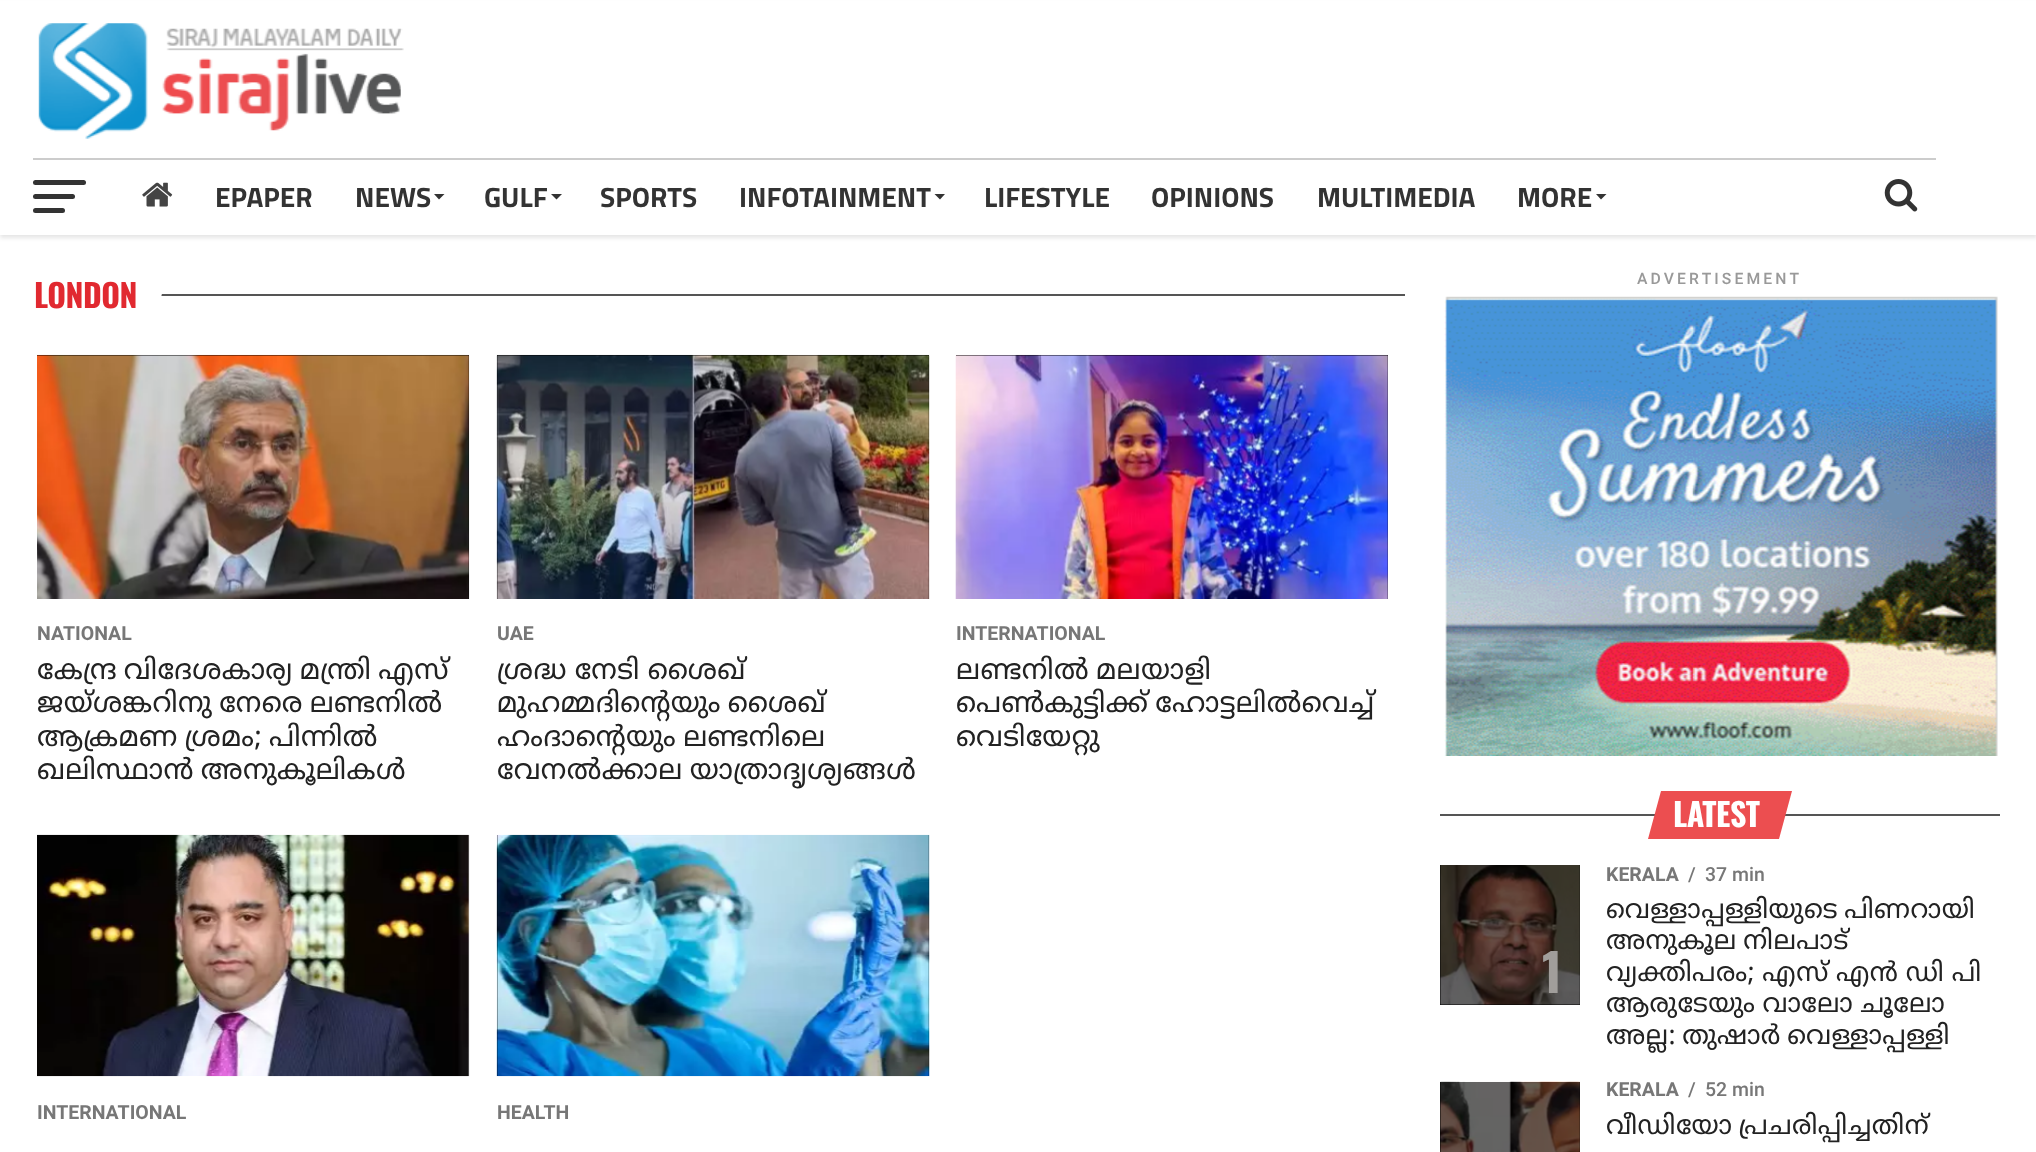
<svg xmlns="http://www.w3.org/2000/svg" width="2036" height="1152">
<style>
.a{font:bold 28px Titillium Web;fill:#333}
.b{font:bold 32px Oswald;letter-spacing:-0.5px;fill:#e12930}
.c{font:bold 19.5px Roboto;fill:#777}
.d{font:28px Noto Sans Malayalam;letter-spacing:0.35px;fill:#222}
.e{font:500 15.75px Roboto;letter-spacing:3.1px;fill:#999}
.f{font:bold 32px Oswald;letter-spacing:-0.5px;fill:#fff}
.g{font:bold 52px Oswald;fill:#a19e9b}
.h{font:500 19.5px Roboto;fill:#777}
.i{font:26.25px Noto Sans Malayalam;letter-spacing:0.35px;fill:#222}
</style>
<defs>
<clipPath id="clip1"><path d="M497 355h432v454H497z"/></clipPath>
</defs>
<rect width="100%" height="100%" fill="#fff"/>
<path fill="#0000001a" filter="blur(2px)" d="M0 4h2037v234H0z"/>
<path fill="#fff" d="M0 1h2036v234H0z"/>
<path fill="#ccc" d="M33 158h1903v2H33z"/>
<image href="1.png" x="38" y="23" width="366" height="116"/>
<rect fill="#333" x="33" y="180" width="53" height="5" rx="2.5"/>
<rect fill="#333" x="33" y="194" width="42" height="5" rx="2.5"/>
<rect fill="#333" x="33" y="208" width="32" height="5" rx="2.5"/>
<image href="2.png" x="142" y="182" width="31" height="25"/>
<path fill="#333" d="M434 194h10.5l-5.5 5.5z"/>
<path fill="#333" d="M551 194h11l-5.5 5.5z"/>
<path fill="#333" d="M934.5 194h10.5l-5 5.5z"/>
<path fill="#333" d="M1596 194h10.5l-5.5 5.5z"/>
<image href="3.png" x="1884" y="179" width="34" height="33"/>
<path fill="#555" d="M37 294h1368v2H37z"/>
<path fill="#fff" d="M43 271h125l-13 49h-124z"/>
<path fill="#000" d="M37 355h432v244H37z"/>
<image href="4.png" x="37" y="354" width="433" height="245"/>
<path fill="#000" d="M497 355h432v244H497z"/>
<image href="5.png" x="496" y="354" width="434" height="245"/>
<path fill="#000" d="M956 355h432v244H956z"/>
<image href="6.png" x="955" y="354" width="433" height="245"/>
<image href="7.png" x="37" y="834" width="433" height="243"/>
<path fill="#000" d="M497 835h432v241H497z"/>
<image href="8.png" x="496" y="834" width="434" height="243"/>
<image href="9.png" x="1444" y="296" width="554" height="460"/>
<path fill="#555" d="M1440 814h560v2H1440z"/>
<path fill="#ec4e50" d="M1661 791h131l-13 48h-131z"/>
<path fill="#000" d="M1440 865h140v140H1440z"/>
<image href="10.png" x="1440" y="865" width="140" height="140"/>
<path fill="#000" d="M1440 1082h140v70H1440z"/>
<image href="11.png" x="1440" y="1081" width="140" height="71"/>
<text class="a" x="215" y="207">EPAPER</text>
<text class="a" x="355" y="207">NEWS</text>
<text class="a" x="484" y="207">GULF</text>
<text class="a" x="600" y="207">SPORTS</text>
<text class="a" x="739" y="207">INFOTAINMENT</text>
<text class="a" x="984" y="207">LIFESTYLE</text>
<text class="a" x="1151" y="207">OPINIONS</text>
<text class="a" x="1317" y="207">MULTIMEDIA</text>
<text class="a" x="1517" y="207">MORE</text>
<text class="b" x="34" y="308">LONDON</text>
<text class="c" x="37" y="640">NATIONAL</text>
<text class="d" x="37" y="679" word-spacing="-2">കേന്ദ്ര വിദേശകാര്യ മന്ത്രി എസ്</text>
<text class="d" x="37" y="712" word-spacing="-2">ജയ്ശങ്കറിനു നേരെ ലണ്ടനില്‍</text>
<text class="d" x="37" y="746" word-spacing="-2">ആക്രമണ ശ്രമം; പിന്നില്‍</text>
<text class="d" x="37" y="779" word-spacing="-2">ഖലിസ്ഥാന്‍ അനുകൂലികള്‍</text>
<text class="c" x="497" y="640">UAE</text>
<text class="d" x="497" y="679" word-spacing="-1">ശ്രദ്ധ നേടി ശൈഖ്</text>
<g clip-path="url(#clip1)">
<text class="d" x="497" y="712" word-spacing="-2">മുഹമ്മദിന്റെയും ശൈഖ്</text>
</g>
<text class="d" x="497" y="746" word-spacing="-2">ഹംദാന്റെയും ലണ്ടനിലെ</text>
<text class="d" x="497" y="779" word-spacing="-2">വേനൽക്കാല യാത്രാദൃശ്യങ്ങൾ</text>
<text class="c" x="956" y="640">INTERNATIONAL</text>
<text class="d" x="956" y="679" word-spacing="-2">ലണ്ടനില്‍ മലയാളി</text>
<text class="d" x="956" y="712" word-spacing="-2">പെണ്‍കുട്ടിക്ക് ഹോട്ടലില്‍വെച്ച്</text>
<text class="d" x="956" y="746">വെടിയേറ്റു</text>
<text class="c" x="37" y="1119">INTERNATIONAL</text>
<text class="c" x="497" y="1119">HEALTH</text>
<text class="e" x="1637" y="284">ADVERTISEMENT</text>
<text class="f" x="1673" y="827">LATEST</text>
<text class="g" x="1542" y="993">1</text>
<text class="c" x="1606" y="881">KERALA</text>
<text class="h" x="1688" y="881">/</text>
<text class="h" x="1705" y="881">37 min</text>
<text class="i" x="1606" y="918" word-spacing="-2">വെള്ളാപ്പള്ളിയുടെ പിണറായി</text>
<text class="i" x="1606" y="949" word-spacing="-2">അനുകൂല നിലപാട്</text>
<text class="i" x="1606" y="981" word-spacing="-1">വ്യക്തിപരം; എസ് എന്‍ ഡി പി</text>
<text class="i" x="1606" y="1012" word-spacing="-1">ആരുടേയും വാലോ ചൂലോ</text>
<text class="i" x="1606" y="1044" word-spacing="-2">അല്ല: തുഷാര്‍ വെള്ളാപ്പള്ളി</text>
<text class="c" x="1606" y="1096">KERALA</text>
<text class="h" x="1688" y="1096">/</text>
<text class="h" x="1705" y="1096">52 min</text>
<text class="i" x="1606" y="1134" word-spacing="-2">വീഡിയോ പ്രചരിപ്പിച്ചതിന്</text>
</svg>
